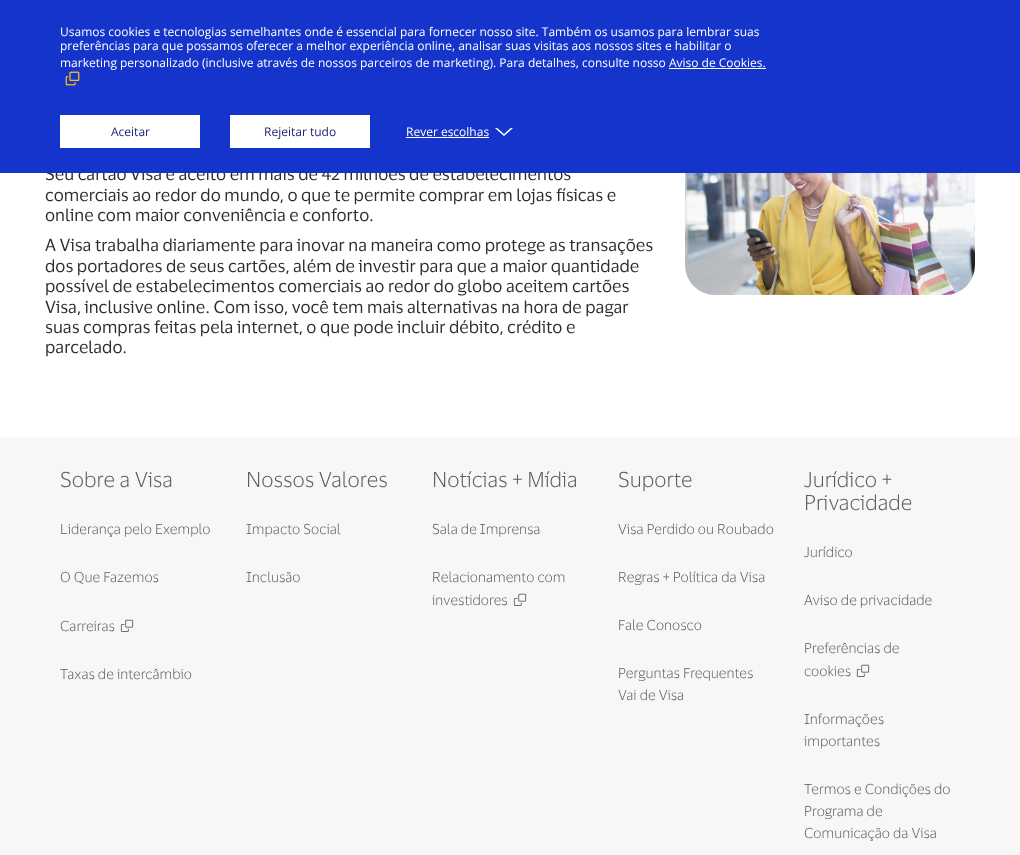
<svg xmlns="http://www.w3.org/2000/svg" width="1020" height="855">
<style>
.a{font:17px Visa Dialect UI;fill:#2c2c2c}
.b{font:12px Open Sans;fill:#fff}
.c{font:12px Open Sans;fill:#1a1f72}
.d{font:300 21px Visa Dialect UI;fill:#5c5c5c}
.e{font:300 14px Visa Dialect UI;fill:#5c5c5c}
</style>
<rect width="100%" height="100%" fill="#fff"/>
<image href="3.png" x="685" y="173" width="290" height="122"/>
<path fill="#f7f7f7" d="M0 437h1020v418H0z"/>
<image href="4.png" x="120" y="619" width="14" height="13"/>
<image href="4.png" x="513" y="593" width="14" height="13"/>
<image href="4.png" x="856" y="664" width="14" height="13"/>
<text class="a" x="45" y="180">Seu cartão Visa é aceito em mais de 42 milhões de estabelecimentos</text>
<path fill="#1434cb" d="M0 0h1020v173H0z"/>
<image href="2.png" x="495" y="128" width="18" height="8"/>
<text class="b" x="406" y="136">Rever escolhas</text>
<path fill="#fff" d="M406 137h83v1H406z"/>
<path fill="#fff" d="M230 115h140v33H230z"/>
<text class="c" x="264" y="136">Rejeitar tudo</text>
<path fill="#fff" d="M60 115h140v33H60z"/>
<text class="c" x="111" y="136">Aceitar</text>
<image href="1.png" x="65" y="71" width="15" height="15"/>
<path fill="#fff" d="M669 68h97v1H669z"/>
<text class="b" x="60" y="67">marketing personalizado (inclusive através de nossos parceiros de marketing). Para detalhes, consulte nosso Aviso de Cookies.</text>
<text class="b" x="60" y="50">preferências para que possamos oferecer a melhor experiência online, analisar suas visitas aos nossos sites e habilitar o</text>
<text class="b" x="60" y="36">Usamos cookies e tecnologias semelhantes onde é essencial para fornecer nosso site. Também os usamos para lembrar suas</text>
<text class="a" x="45" y="201">comerciais ao redor do mundo, o que te permite comprar em lojas físicas e</text>
<text class="a" x="45" y="221">online com maior conveniência e conforto.</text>
<text class="a" x="45" y="251">A Visa trabalha diariamente para inovar na maneira como protege as transações</text>
<text class="a" x="45" y="272">dos portadores de seus cartões, além de investir para que a maior quantidade</text>
<text class="a" x="45" y="292">possível de estabelecimentos comerciais ao redor do globo aceitem cartões</text>
<text class="a" x="45" y="313">Visa, inclusive online. Com isso, você tem mais alternativas na hora de pagar</text>
<text class="a" x="45" y="333">suas compras feitas pela internet, o que pode incluir débito, crédito e</text>
<text class="a" x="45" y="353">parcelado.</text>
<text class="d" x="60" y="487">Sobre a Visa</text>
<text class="e" x="60" y="534">Liderança pelo Exemplo</text>
<text class="e" x="60" y="582">O Que Fazemos</text>
<text class="e" x="60" y="631">Carreiras</text>
<text class="e" x="60" y="679">Taxas de intercâmbio</text>
<text class="d" x="246" y="487">Nossos Valores</text>
<text class="e" x="246" y="534">Impacto Social</text>
<text class="e" x="246" y="582">Inclusão</text>
<text class="d" x="432" y="487">Notícias + Mídia</text>
<text class="e" x="432" y="534">Sala de Imprensa</text>
<text class="e" x="432" y="582">Relacionamento com</text>
<text class="e" x="432" y="605">investidores</text>
<text class="d" x="618" y="487">Suporte</text>
<text class="e" x="618" y="534">Visa Perdido ou Roubado</text>
<text class="e" x="618" y="582">Regras + Política da Visa</text>
<text class="e" x="618" y="630">Fale Conosco</text>
<text class="e" x="618" y="678">Perguntas Frequentes</text>
<text class="e" x="618" y="700">Vai de Visa</text>
<text class="d" x="804" y="487">Jurídico +</text>
<text class="d" x="804" y="510">Privacidade</text>
<text class="e" x="804" y="557">Jurídico</text>
<text class="e" x="804" y="605">Aviso de privacidade</text>
<text class="e" x="804" y="653">Preferências de</text>
<text class="e" x="804" y="676">cookies</text>
<text class="e" x="804" y="724">Informações</text>
<text class="e" x="804" y="746">importantes</text>
<text class="e" x="804" y="794">Termos e Condições do</text>
<text class="e" x="804" y="816">Programa de</text>
<text class="e" x="804" y="838">Comunicação da Visa</text>
</svg>
